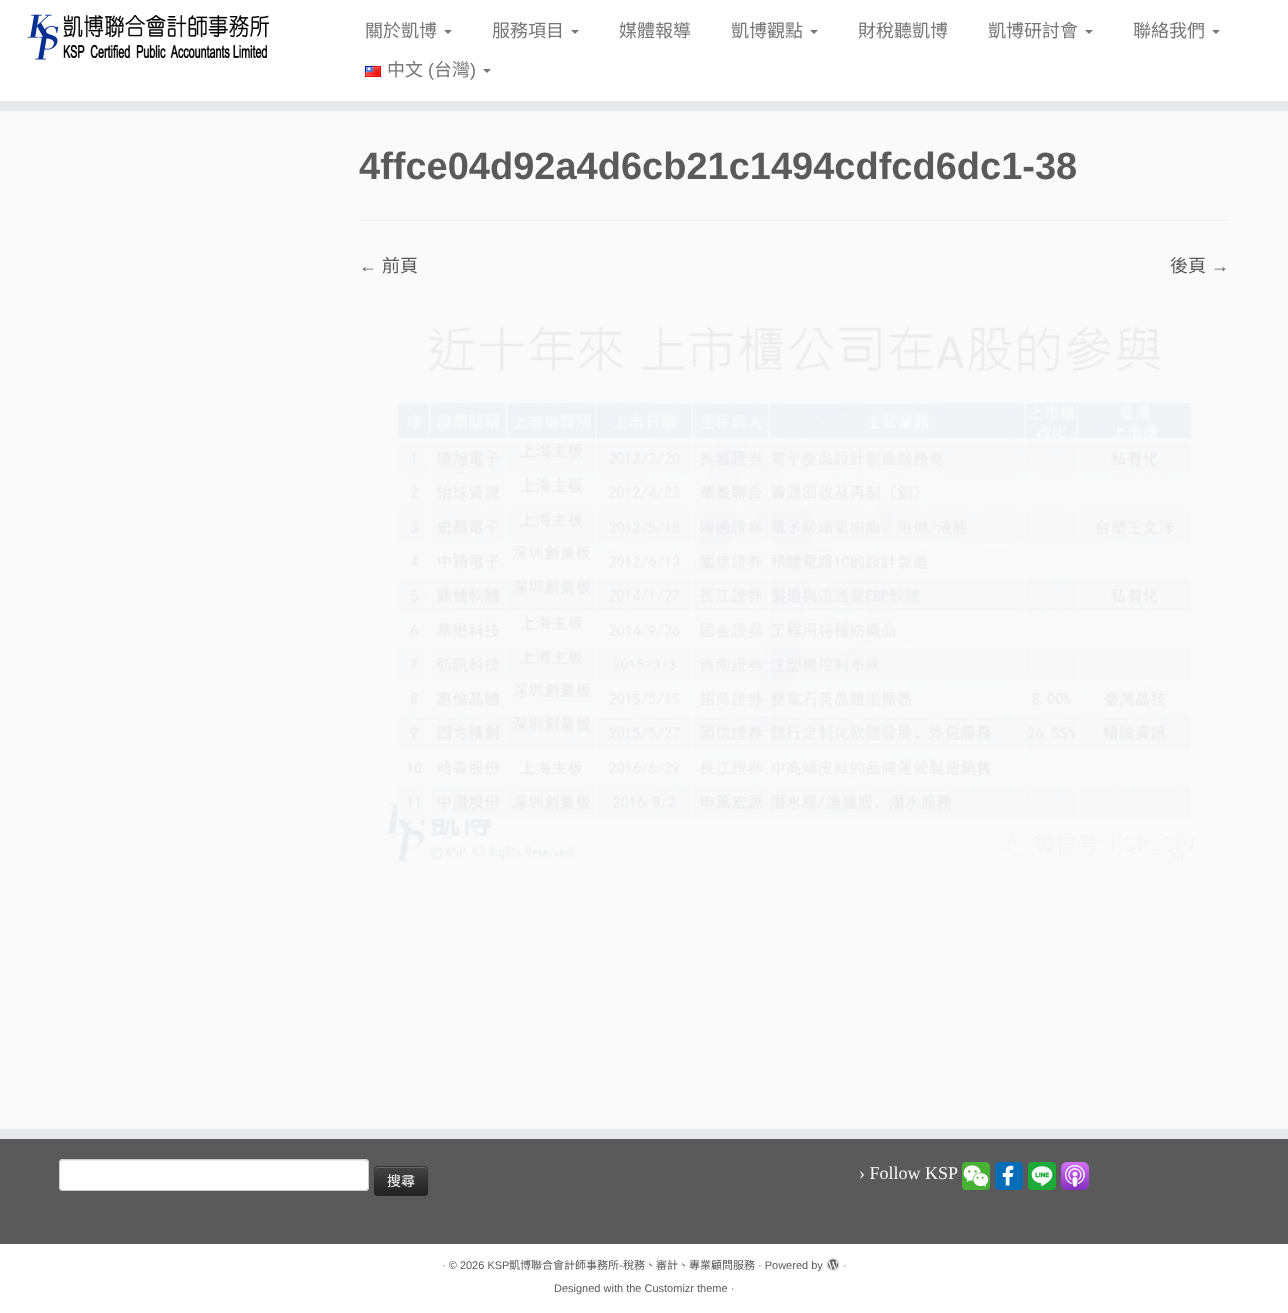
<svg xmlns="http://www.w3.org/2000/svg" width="1288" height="1313">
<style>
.a{font:18px Noto Sans CJK TC;fill:#777}
.b{font:18px Liberation Sans;fill:#777}
.c{font:bold 38px Liberation Sans;fill:#5a5a5a}
.d{font:18px Liberation Sans;fill:#5a5a5a}
.e{font:18px Noto Sans CJK TC;fill:#5a5a5a}
.f{font:14px Noto Sans CJK TC;fill:#fafafa}
.g{font:18px Liberation Serif;fill:#fafafa}
.h{font:11px Liberation Sans;fill:#5a5a5a}
.i{font:11px Noto Sans CJK TC;fill:#5a5a5a}
</style>
<defs>
<clipPath id="clip1"><rect x="374" y="1166" width="54" height="30" rx="4"/></clipPath>
<linearGradient id="g1" gradientUnits="userSpaceOnUse" x1="401" y1="1167" x2="401" y2="1195"><stop offset="0" stop-color="#444"/><stop offset="1" stop-color="#222"/></linearGradient>
</defs>
<rect width="100%" height="100%" fill="#fafafa"/>
<path fill="#fff" d="M0 0h1288v101H0z"/>
<path fill="#e9eaee" d="M0 101h1288v10H0z"/>
<image href="1.png" x="27" y="14" width="242" height="46"/>
<path fill="#777" d="M444 30h8l-4 4z"/>
<path fill="#777" d="M571 30h8l-4 4z"/>
<path fill="#777" d="M810 30h8l-4 4z"/>
<path fill="#777" d="M1085 30h8l-4 4z"/>
<path fill="#777" d="M1212 30h8l-4 4z"/>
<image href="2.png" x="365" y="66" width="16" height="11"/>
<path fill="#777" d="M483 69h8l-4 4z"/>
<path fill="#eee" d="M359 220h870v1H359z"/>
<path fill="#fff" d="M359 221h870v1H359z"/>
<image href="3.png" x="386" y="326" width="808" height="536"/>
<path fill="#5a5a5a" d="M0 1139h1288v105H0z"/>
<path fill="#e9eaee" d="M0 1129h1288v10H0z"/>
<rect fill="#fff" x="59" y="1159" width="310" height="32" rx="4"/>
<path fill="#ececec" d="M63 1161h302c2 0 3 1 3 3l-1-3l-1-1h-303c-2 0-3 2-3 4c0-2 1-3 3-3z"/>
<rect fill="none" stroke="#ccc" x="59.5" y="1159.5" width="309" height="31" rx="3.5"/>
<rect fill="#363636" x="374" y="1166" width="54" height="30" rx="4"/>
<g clip-path="url(#clip1)">
<path fill="url(#g1)" d="M374 1167h54v28H374z"/>
</g>
<path fill="#696969" d="M378 1168h46c2 0 3 1 3 3c0-6-6-4-11-4h-30c-5 0-11-2-11 4c0-2 1-3 3-3z"/>
<path fill="none" stroke="#00000040" d="M426.5 1194.5c-.5 .5-1.5 1-2.5 1h-46c-1 0-2-.5-2.5-1"/>
<path fill="none" stroke="#0000001a" d="M375.5 1194.5c-2-2-1-10.5-1-13.5c0-14.5-3-14.5 11-14.5h31c14 0 11 0 11 14.5c0 3 1 11.5-1 13.5"/>
<image href="4.png" x="962" y="1162" width="28" height="28"/>
<image href="5.png" x="995" y="1162" width="28" height="28"/>
<image href="6.png" x="1028" y="1162" width="28" height="28"/>
<image href="7.png" x="1061" y="1162" width="28" height="28"/>
<path fill="#fff" d="M0 1244h1288v69H0z"/>
<image href="8.png" x="827" y="1258" width="12" height="13"/>
<text class="a" x="365" y="37">關於凱博</text>
<text class="a" x="492" y="37">服務項目</text>
<text class="a" x="619" y="37">媒體報導</text>
<text class="a" x="731" y="37">凱博觀點</text>
<text class="a" x="858" y="37">財稅聽凱博</text>
<text class="a" x="988" y="37">凱博研討會</text>
<text class="a" x="1133" y="37">聯絡我們</text>
<text class="a" x="387" y="76">中文</text>
<text class="b" x="428" y="76">(</text>
<text class="a" x="434" y="76">台灣</text>
<text class="b" x="470" y="76">)</text>
<text class="c" x="359" y="179">4ffce04d92a4d6cb21c1494cdfcd6dc1-38</text>
<text class="d" x="359" y="272">←</text>
<text class="e" x="382" y="272">前頁</text>
<text class="e" x="1170" y="272">後頁</text>
<text class="d" x="1211" y="272">→</text>
<text class="f" x="387" y="1186">搜尋</text>
<text class="g" x="859" y="1179">› Follow KSP</text>
<text class="h" x="442" y="1269">· © 2026 KSP</text>
<text class="i" x="509" y="1269">凱博聯合會計師事務所</text>
<text class="h" x="619" y="1269">-</text>
<text class="i" x="623" y="1269">稅務、審計、專業顧問服務</text>
<text class="h" x="758" y="1269">· Powered by</text>
<text class="h" x="843" y="1269">·</text>
<text class="h" x="554" y="1292">Designed with the Customizr theme ·</text>
</svg>
